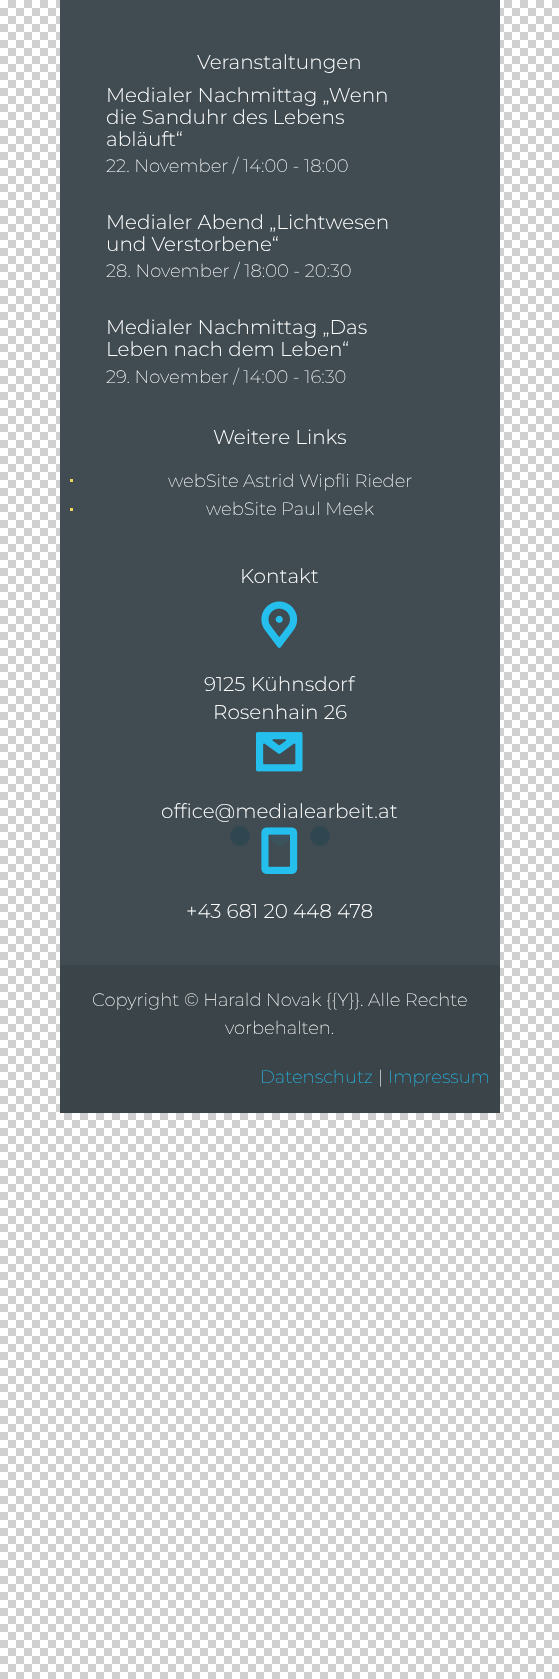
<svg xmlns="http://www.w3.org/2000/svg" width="559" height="1679">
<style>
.a{font:100 20px Montserrat;fill:#fff}
.b{font:100 18px 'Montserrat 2';fill:#fff}
.c{font:100 18px 'Montserrat 2';fill:#25bfee}
</style>
<rect width="100%" height="100%" fill="#fff"/>
<image href="1.png" x="0" y="0" width="559" height="1679"/>
<path fill="#404c52" d="M60 0h440v965H60z"/>
<path fill="#eed85c" d="M70 479h3v3H70z"/>
<path fill="#eed85c" d="M70 508h3v3H70z"/>
<image href="2.png" x="261" y="601" width="37" height="47"/>
<image href="3.png" x="256" y="732" width="47" height="40"/>
<image href="4.png" x="261" y="827" width="37" height="47"/>
<path fill="#3b4449" d="M60 965h440v148H60z"/>
<circle fill="#304751" cx="240" cy="836" r="10"/>
<circle fill="#15baed12" cx="280" cy="836" r="10"/>
<circle fill="#304751" cx="320" cy="836" r="10"/>
<text class="a" x="197" y="69">Veranstaltungen</text>
<text class="a" x="106" y="102">Medialer Nachmittag „Wenn</text>
<text class="a" x="106" y="124">die Sanduhr des Lebens</text>
<text class="a" x="106" y="146">abläuft“</text>
<text class="b" x="106" y="172">22. November / 14:00 - 18:00</text>
<text class="a" x="106" y="229">Medialer Abend „Lichtwesen</text>
<text class="a" x="106" y="251">und Verstorbene“</text>
<text class="b" x="106" y="277">28. November / 18:00 - 20:30</text>
<text class="a" x="106" y="334">Medialer Nachmittag „Das</text>
<text class="a" x="106" y="356">Leben nach dem Leben“</text>
<text class="b" x="106" y="383">29. November / 14:00 - 16:30</text>
<text class="a" x="213" y="444">Weitere Links</text>
<text class="b" x="168" y="487">webSite Astrid Wipfli Rieder</text>
<text class="b" x="206" y="515">webSite Paul Meek</text>
<text class="a" x="240" y="583">Kontakt</text>
<text class="a" x="204" y="691">9125 Kühnsdorf</text>
<text class="a" x="213" y="719">Rosenhain 26</text>
<text class="a" x="161" y="818">office@medialearbeit.at</text>
<text class="a" x="186" y="918">+43 681 20 448 478</text>
<text class="b" x="92" y="1006">Copyright © Harald Novak {{Y}}. Alle Rechte</text>
<text class="b" x="225" y="1034">vorbehalten.</text>
<text class="c" x="260" y="1083">Datenschutz</text>
<text class="b" x="378" y="1083">|</text>
<text class="c" x="388" y="1083">Impressum</text>
</svg>
